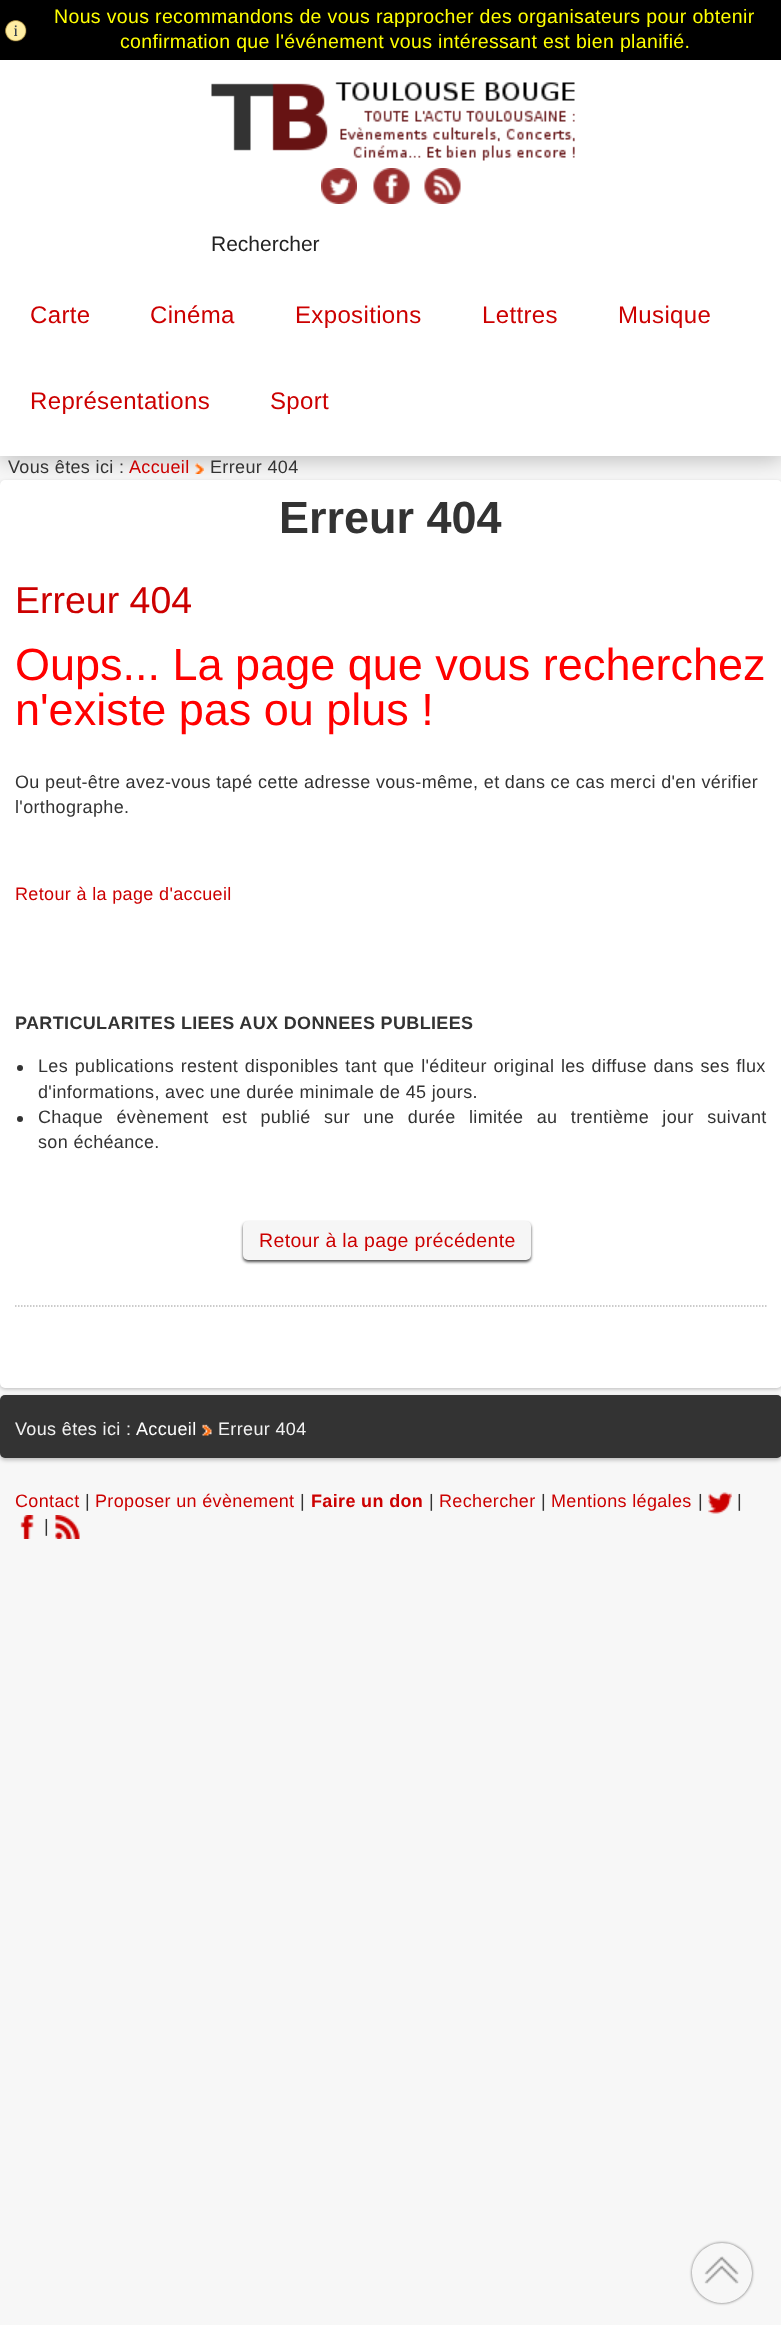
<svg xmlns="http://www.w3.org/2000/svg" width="781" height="2325">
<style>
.a{font:19.5px Liberation Sans;letter-spacing:0.35px;fill:#ff0}
.b{font:21px Liberation Sans;fill:#222}
.c{font:24px Liberation Sans;letter-spacing:0.35px;fill:#c00}
.d{font:18px Liberation Sans;letter-spacing:0.35px;fill:#333}
.e{font:18px Liberation Sans;letter-spacing:0.35px;fill:#c00}
.f{font:bold 45px Liberation Sans;fill:#333}
.g{font:37.5px Liberation Sans;fill:#c00}
.h{font:45px Liberation Sans;fill:#f00}
.i{font:bold 18px Liberation Sans;letter-spacing:0.35px;fill:#333}
.j{font:19.5px Liberation Sans;letter-spacing:0.35px;fill:#c00}
.k{font:18px Liberation Sans;letter-spacing:0.35px;fill:#f1f1f1}
.l{font:18px Liberation Sans;letter-spacing:0.35px;fill:#fff}
.m{font:bold 18px Liberation Sans;letter-spacing:0.35px;fill:#c00}
</style>
<defs>
<clipPath id="clip1"><path d="M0 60h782v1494H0z"/></clipPath>
<clipPath id="clip2"><path d="M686 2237h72v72h-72zm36 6c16.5 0 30 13.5 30 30c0 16.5-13.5 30-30 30c-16.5 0-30-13.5-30-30c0-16.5 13.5-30 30-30z" clip-rule="evenodd"/></clipPath>
</defs>
<rect width="100%" height="100%" fill="#f7f7f7"/>
<path fill="#000" d="M0 0h781v60H0z"/>
<image href="1.png" x="5" y="20" width="22" height="22"/>
<g clip-path="url(#clip1)">
<path fill="#00000040" filter="blur(11px)" d="M0 63h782v396H0z"/>
</g>
<path fill="#fff" d="M0 60h781v396H0z"/>
<image href="2.png" x="211" y="82" width="364" height="79"/>
<image href="3.png" x="321" y="168" width="36" height="36"/>
<image href="4.png" x="373" y="168" width="37" height="36"/>
<image href="5.png" x="424" y="168" width="37" height="36"/>
<image href="6.png" x="195" y="463" width="9" height="11"/>
<rect fill="#00000040" filter="blur(2px)" y="482" width="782" height="907" rx="5"/>
<rect fill="#fff" y="480" width="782" height="908" rx="5"/>
<circle fill="#333" cx="20" cy="1068" r="3"/>
<circle fill="#333" cx="20" cy="1119" r="3"/>
<path fill="none" stroke="#bbb" stroke-width="1.5" stroke-dasharray="1.5 1.5" d="M15 1306h751.5"/>
<rect fill="#000000b3" filter="blur(1.5px)" x="243" y="1223" width="288" height="39" rx="5"/>
<rect fill="#f6f6f6" x="243" y="1221" width="288" height="39" rx="5"/>
<rect fill="#00000040" filter="blur(2px)" y="1397" width="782" height="63" rx="5"/>
<rect fill="#333" y="1395" width="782" height="63" rx="5"/>
<image href="7.png" x="202" y="1424" width="10" height="12"/>
<image href="8.png" x="708" y="1492" width="24" height="22"/>
<image href="9.png" x="20" y="1515" width="14" height="24"/>
<image href="10.png" x="55" y="1515" width="25" height="24"/>
<g clip-path="url(#clip2)">
<rect fill="#323232bf" filter="blur(1.5px)" x="692" y="2243" width="60" height="60" rx="30"/>
</g>
<image href="11.png" x="704" y="2256" width="35" height="28"/>
<text class="a" x="54" y="23">Nous vous recommandons de vous rapprocher des organisateurs pour obtenir</text>
<text class="a" x="120" y="48">confirmation que l'événement vous intéressant est bien planifié.</text>
<text class="b" x="211" y="251">Rechercher</text>
<text class="c" x="30" y="323">Carte</text>
<text class="c" x="150" y="323">Cinéma</text>
<text class="c" x="295" y="323">Expositions</text>
<text class="c" x="482" y="323">Lettres</text>
<text class="c" x="618" y="323">Musique</text>
<text class="c" x="30" y="409">Représentations</text>
<text class="c" x="270" y="409">Sport</text>
<text class="d" x="8" y="473">Vous êtes ici :</text>
<text class="e" x="129" y="473">Accueil</text>
<text class="d" x="210" y="473">Erreur 404</text>
<text class="f" x="279" y="533">Erreur 404</text>
<text class="g" x="15" y="613">Erreur 404</text>
<text class="h" x="15" y="680">Oups... La page que vous recherchez</text>
<text class="h" x="15" y="725">n'existe pas ou plus !</text>
<text class="d" x="15" y="788">Ou peut-être avez-vous tapé cette adresse vous-même, et dans ce cas merci d'en vérifier</text>
<text class="d" x="15" y="813">l'orthographe.</text>
<text class="e" x="15" y="900">Retour à la page d'accueil</text>
<text class="i" x="15" y="1029">PARTICULARITES LIEES AUX DONNEES PUBLIEES</text>
<text class="d" x="38" y="1072" word-spacing="1.3">Les publications restent disponibles tant que l'éditeur original les diffuse dans ses flux</text>
<text class="d" x="38" y="1098">d'informations, avec une durée minimale de 45 jours.</text>
<text class="d" x="38" y="1123" word-spacing="8">Chaque évènement est publié sur une durée limitée au trentième jour suivant</text>
<text class="d" x="38" y="1148">son échéance.</text>
<text class="j" x="259" y="1247">Retour à la page précédente</text>
<text class="k" x="15" y="1435">Vous êtes ici :</text>
<text class="l" x="136" y="1435">Accueil</text>
<text class="k" x="218" y="1435">Erreur 404</text>
<text class="e" x="15" y="1507">Contact</text>
<text class="d" x="85" y="1507">|</text>
<text class="e" x="95" y="1507">Proposer un évènement</text>
<text class="d" x="300" y="1507">|</text>
<text class="m" x="311" y="1507">Faire un don</text>
<text class="d" x="429" y="1507">|</text>
<text class="e" x="439" y="1507">Rechercher</text>
<text class="d" x="541" y="1507">|</text>
<text class="e" x="551" y="1507">Mentions légales</text>
<text class="d" x="698" y="1507">|</text>
<text class="d" x="737" y="1507">|</text>
<text class="d" x="44" y="1532">|</text>
</svg>
